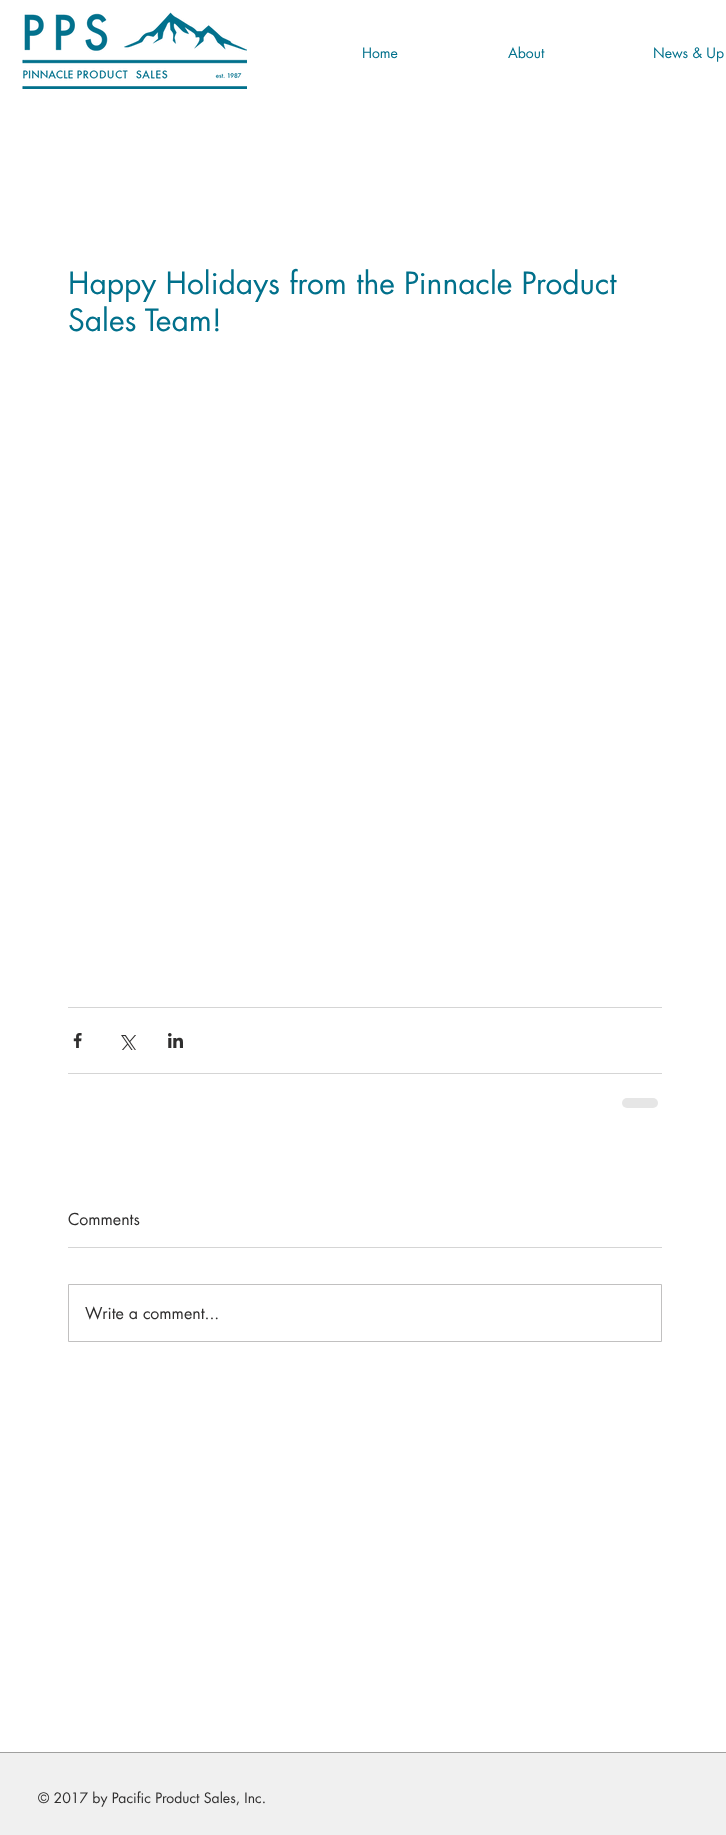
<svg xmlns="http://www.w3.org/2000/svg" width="726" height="1835">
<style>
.a{font:14px futura;fill:#00708b}
.b{font:30px futura;fill:#00708b}
.c{font:16px futura;fill:#2f2e2e}
.d{font:14px futura;fill:#2f2e2e}
</style>
<rect width="100%" height="100%" fill="#fff"/>
<image href="1.png" x="22" y="12" width="225" height="77"/>
<path fill="#d5d5d5" d="M68 1007h594v1H68z"/>
<image href="2.png" x="73" y="1033" width="9" height="15"/>
<image href="3.png" x="121" y="1035" width="15" height="15"/>
<image href="4.png" x="168" y="1033" width="15" height="15"/>
<path fill="#d5d5d5" d="M68 1073h594v1H68z"/>
<rect fill="#e6e6e6" x="622" y="1098" width="36" height="10" rx="5"/>
<path fill="#d5d5d5" d="M68 1247h594v1H68z"/>
<path fill="none" stroke="#c1c0c0" d="M68.5 1284.5h593v57H68.5z"/>
<path fill="#f0f0f0" d="M0 1753h726v82H0z"/>
<path fill="#a0a09f" d="M0 1752h726v1H0z"/>
<text class="a" x="362" y="58">Home</text>
<text class="a" x="508" y="58">About</text>
<text class="a" x="653" y="58">News &amp; Up</text>
<text class="b" x="68" y="294">Happy Holidays from the Pinnacle Product</text>
<text class="b" x="68" y="331">Sales Team!</text>
<text class="c" x="68" y="1225">Comments</text>
<text class="c" x="85" y="1319">Write a comment...</text>
<text class="d" x="38" y="1803">© 2017 by Pacific Product Sales, Inc.</text>
</svg>
